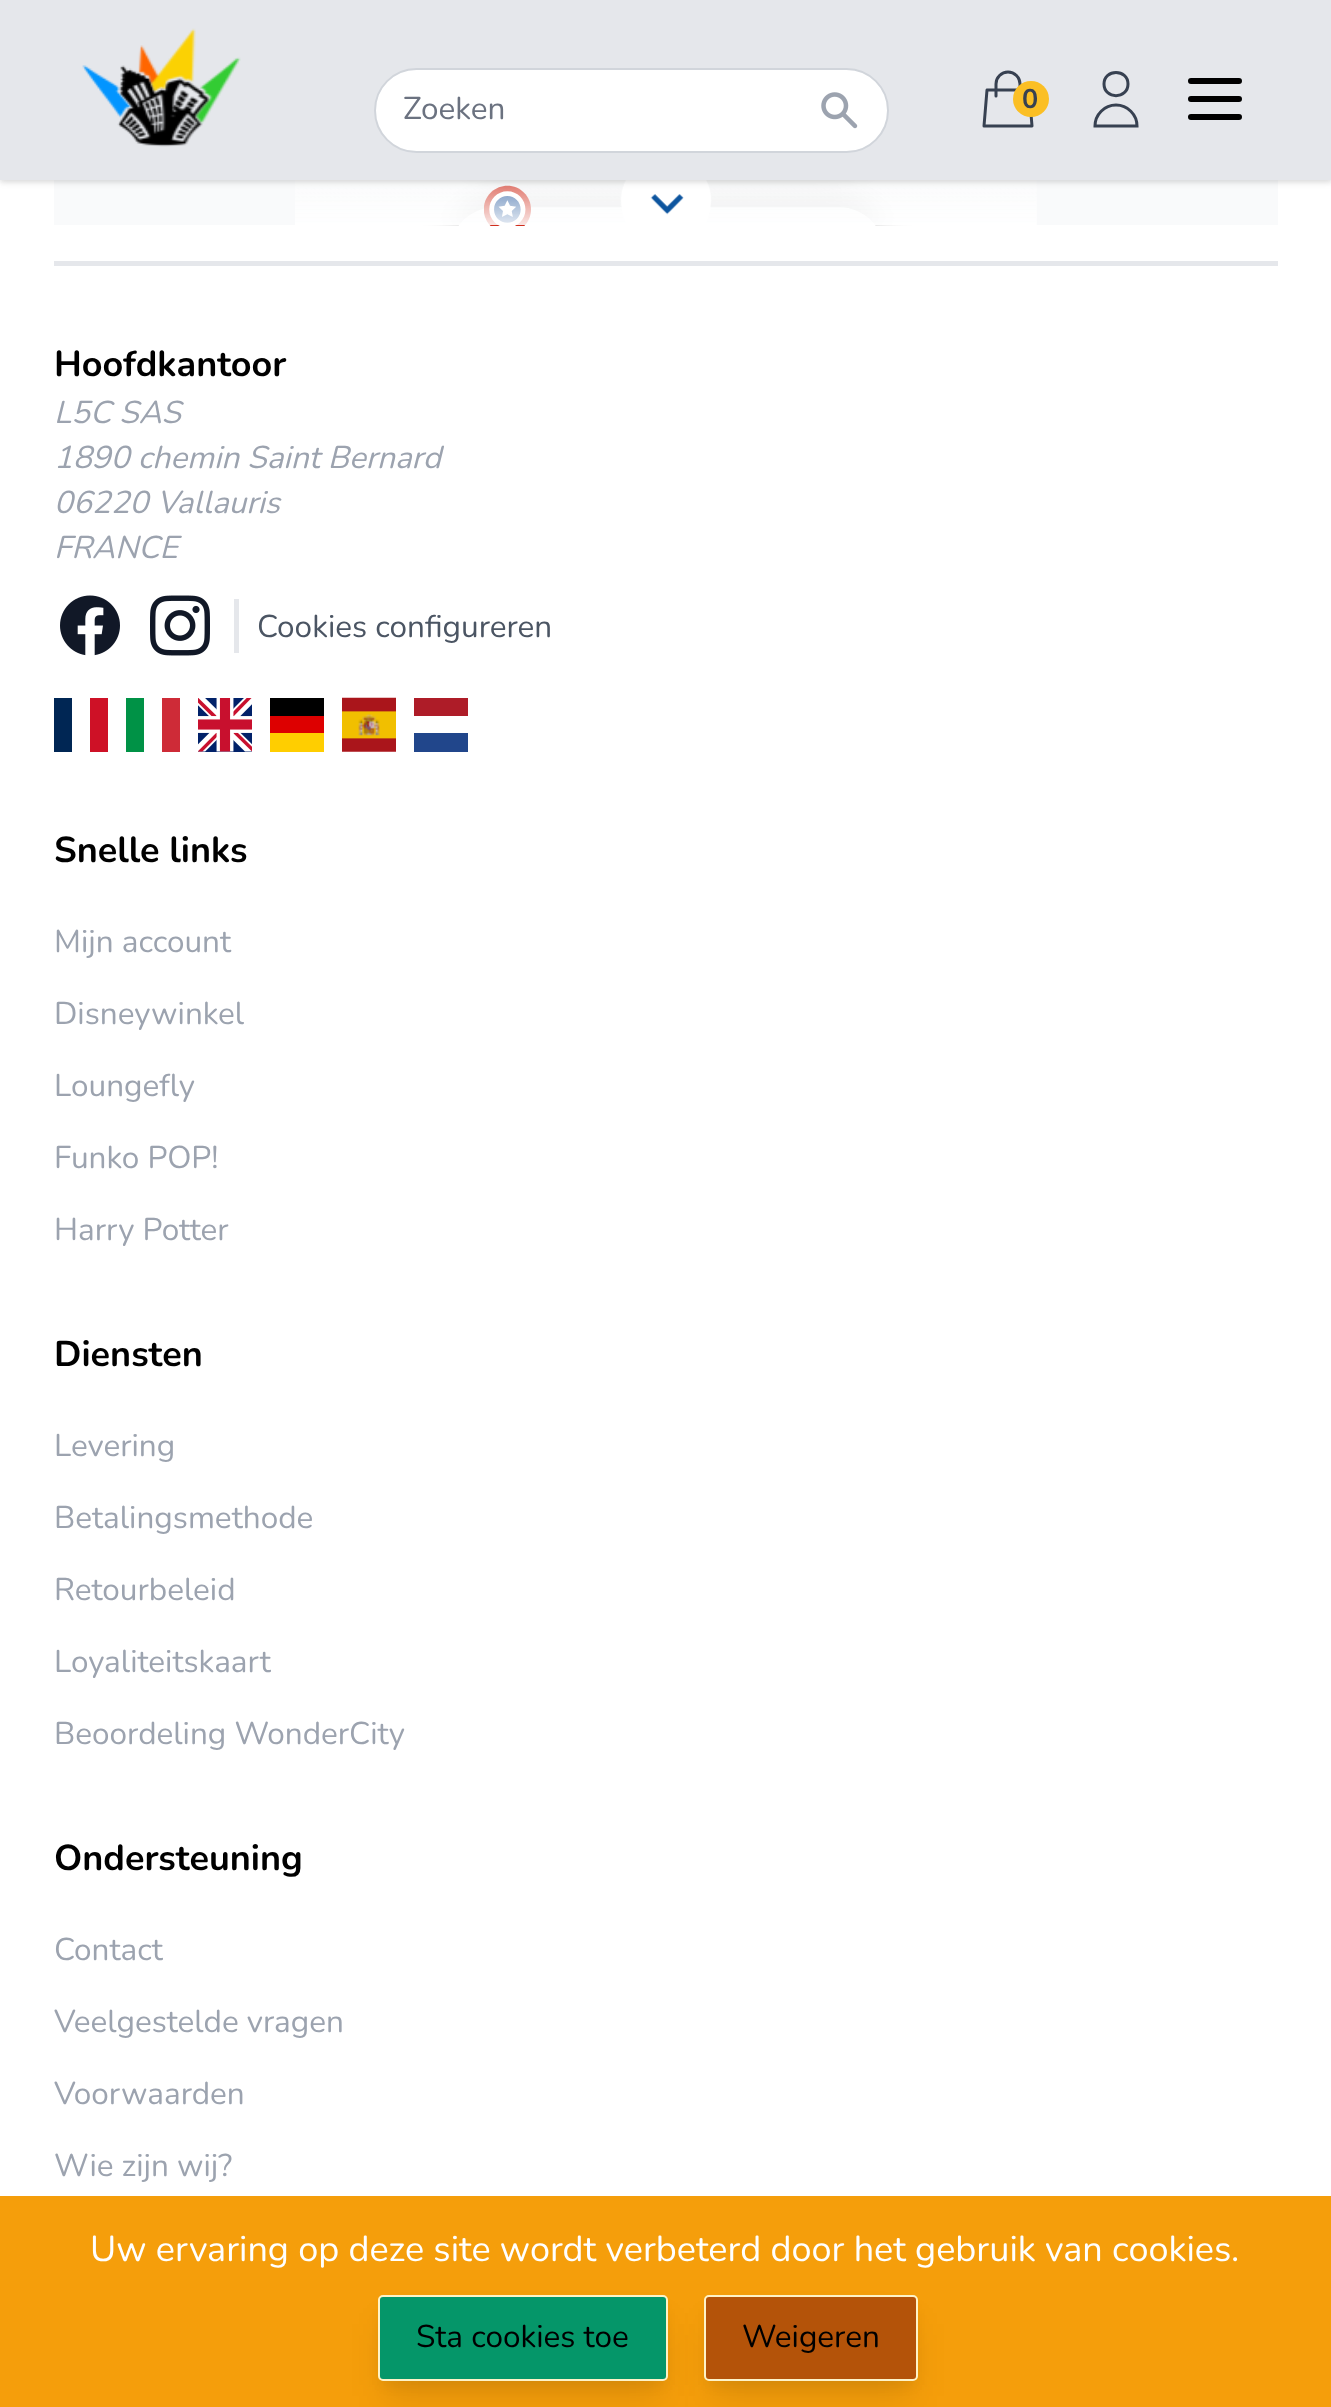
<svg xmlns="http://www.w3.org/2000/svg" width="1331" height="2407">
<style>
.a{font:31.5px Nunito;fill:#6b7280}
.b{font:bold 27px Nunito;fill:#374151}
.c{font:bold 36px Nunito;fill:#000}
.d{font:italic 31.5px Nunito;fill:#9ca3af}
.e{font:31.5px Nunito;fill:#4b5563}
.f{font:31.5px Nunito;fill:#9ca3af}
.g{font:36px Nunito;fill:#fff}
.h{font:31.5px Nunito;fill:#000}
</style>
<rect width="100%" height="100%" fill="#fff"/>
<path fill="#f9fafb" d="M54 180h1224v45H54z"/>
<image href="3.png" x="295" y="180" width="742" height="46"/>
<path fill="#0000000f" filter="blur(2px)" d="M0 2h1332v180H0z"/>
<path fill="#0000001a" filter="blur(3.5px)" d="M0 2h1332v180H0z"/>
<path fill="#e5e7eb" d="M0 0h1331v180H0z"/>
<image href="1.png" x="82" y="28" width="159" height="119"/>
<rect fill="#fff" stroke="#d1d5db" stroke-width="2" x="375" y="69" width="513" height="83" rx="41.5"/>
<image href="2.png" x="821" y="92" width="37" height="37"/>
<path fill="none" stroke="#374151" stroke-width="3" stroke-linecap="round" stroke-linejoin="round" d="M1020 96v-12c0-6.5-5.5-12-12-12c-6.5 0-12 5.5-12 12v12m-9-6h42l3 36h-48z"/>
<circle fill="#fbbf24" cx="1031" cy="99" r="18"/>
<path fill="none" stroke="#374151" stroke-width="3" d="M1128 84c0 15.5-24 15.5-24 0c0-15.5 24-15.5 24 0zm-12 21c-11.5 0-21 9.5-21 21h42c0-11.5-9.5-21-21-21z"/>
<path fill="none" stroke="#000" stroke-width="6" stroke-linecap="round" stroke-linejoin="round" d="M1191 81h48m-48 18h48m-48 18h48"/>
<path fill="#e5e7eb" d="M54 261h1224v5H54z"/>
<image href="4.png" x="60" y="595" width="60" height="61"/>
<image href="5.png" x="150" y="595" width="60" height="61"/>
<path fill="#e5e7eb" d="M234 599h5v54H234z"/>
<path fill="#002654" d="M54 698h18v54H54z"/>
<path fill="#ce1126" d="M90 698h18v54H90z"/>
<path fill="#009246" d="M126 698h18v54H126z"/>
<path fill="#ce2b37" d="M162 698h18v54H162z"/>
<image href="6.png" x="198" y="698" width="54" height="54"/>
<path fill="#ffce00" d="M270 733h54v19H270z"/>
<path fill="#000" d="M270 698h54v18H270z"/>
<path fill="#d00" d="M270 716h54v17H270z"/>
<image href="7.png" x="342" y="697" width="54" height="55"/>
<path fill="#21468b" d="M414 733h54v19H414z"/>
<path fill="#ae1c28" d="M414 698h54v18H414z"/>
<path fill="#f59e0b" d="M0 2196h1331v211H0z"/>
<path fill="#0000000d" filter="blur(7px)" d="M383 2309h281v76H383z"/>
<path fill="#0000001a" filter="blur(17px)" d="M385 2324h277v72H385z"/>
<rect fill="#059669" stroke="#fef3c7" stroke-width="2" x="379" y="2296" width="288" height="84" rx="4"/>
<path fill="#0000000d" filter="blur(7px)" d="M709 2309h205v76H709z"/>
<path fill="#0000001a" filter="blur(17px)" d="M711 2324h200v72H711z"/>
<rect fill="#b45309" stroke="#fef3c7" stroke-width="2" x="705" y="2296" width="212" height="84" rx="4"/>
<text class="a" x="403" y="119">Zoeken</text>
<text class="b" x="1022" y="108">0</text>
<text class="c" x="54" y="376">Hoofdkantoor</text>
<text class="d" x="54" y="423">L5C SAS</text>
<text class="d" x="54" y="468">1890 chemin Saint Bernard</text>
<text class="d" x="54" y="513">06220 Vallauris</text>
<text class="d" x="54" y="558">FRANCE</text>
<text class="e" x="257" y="637">Cookies configureren</text>
<text class="c" x="54" y="862">Snelle links</text>
<text class="f" x="54" y="952">Mijn account</text>
<text class="f" x="54" y="1024">Disneywinkel</text>
<text class="f" x="54" y="1096">Loungefly</text>
<text class="f" x="54" y="1168">Funko POP!</text>
<text class="f" x="54" y="1240">Harry Potter</text>
<text class="c" x="54" y="1366">Diensten</text>
<text class="f" x="54" y="1456">Levering</text>
<text class="f" x="54" y="1528">Betalingsmethode</text>
<text class="f" x="54" y="1600">Retourbeleid</text>
<text class="f" x="54" y="1672">Loyaliteitskaart</text>
<text class="f" x="54" y="1744">Beoordeling WonderCity</text>
<text class="c" x="54" y="1870">Ondersteuning</text>
<text class="f" x="54" y="1960">Contact</text>
<text class="f" x="54" y="2032">Veelgestelde vragen</text>
<text class="f" x="54" y="2104">Voorwaarden</text>
<text class="f" x="54" y="2176">Wie zijn wij?</text>
<text class="g" x="90" y="2261">Uw ervaring op deze site wordt verbeterd door het gebruik van cookies.</text>
<text class="h" x="416" y="2347">Sta cookies toe</text>
<text class="h" x="742" y="2347">Weigeren</text>
</svg>
